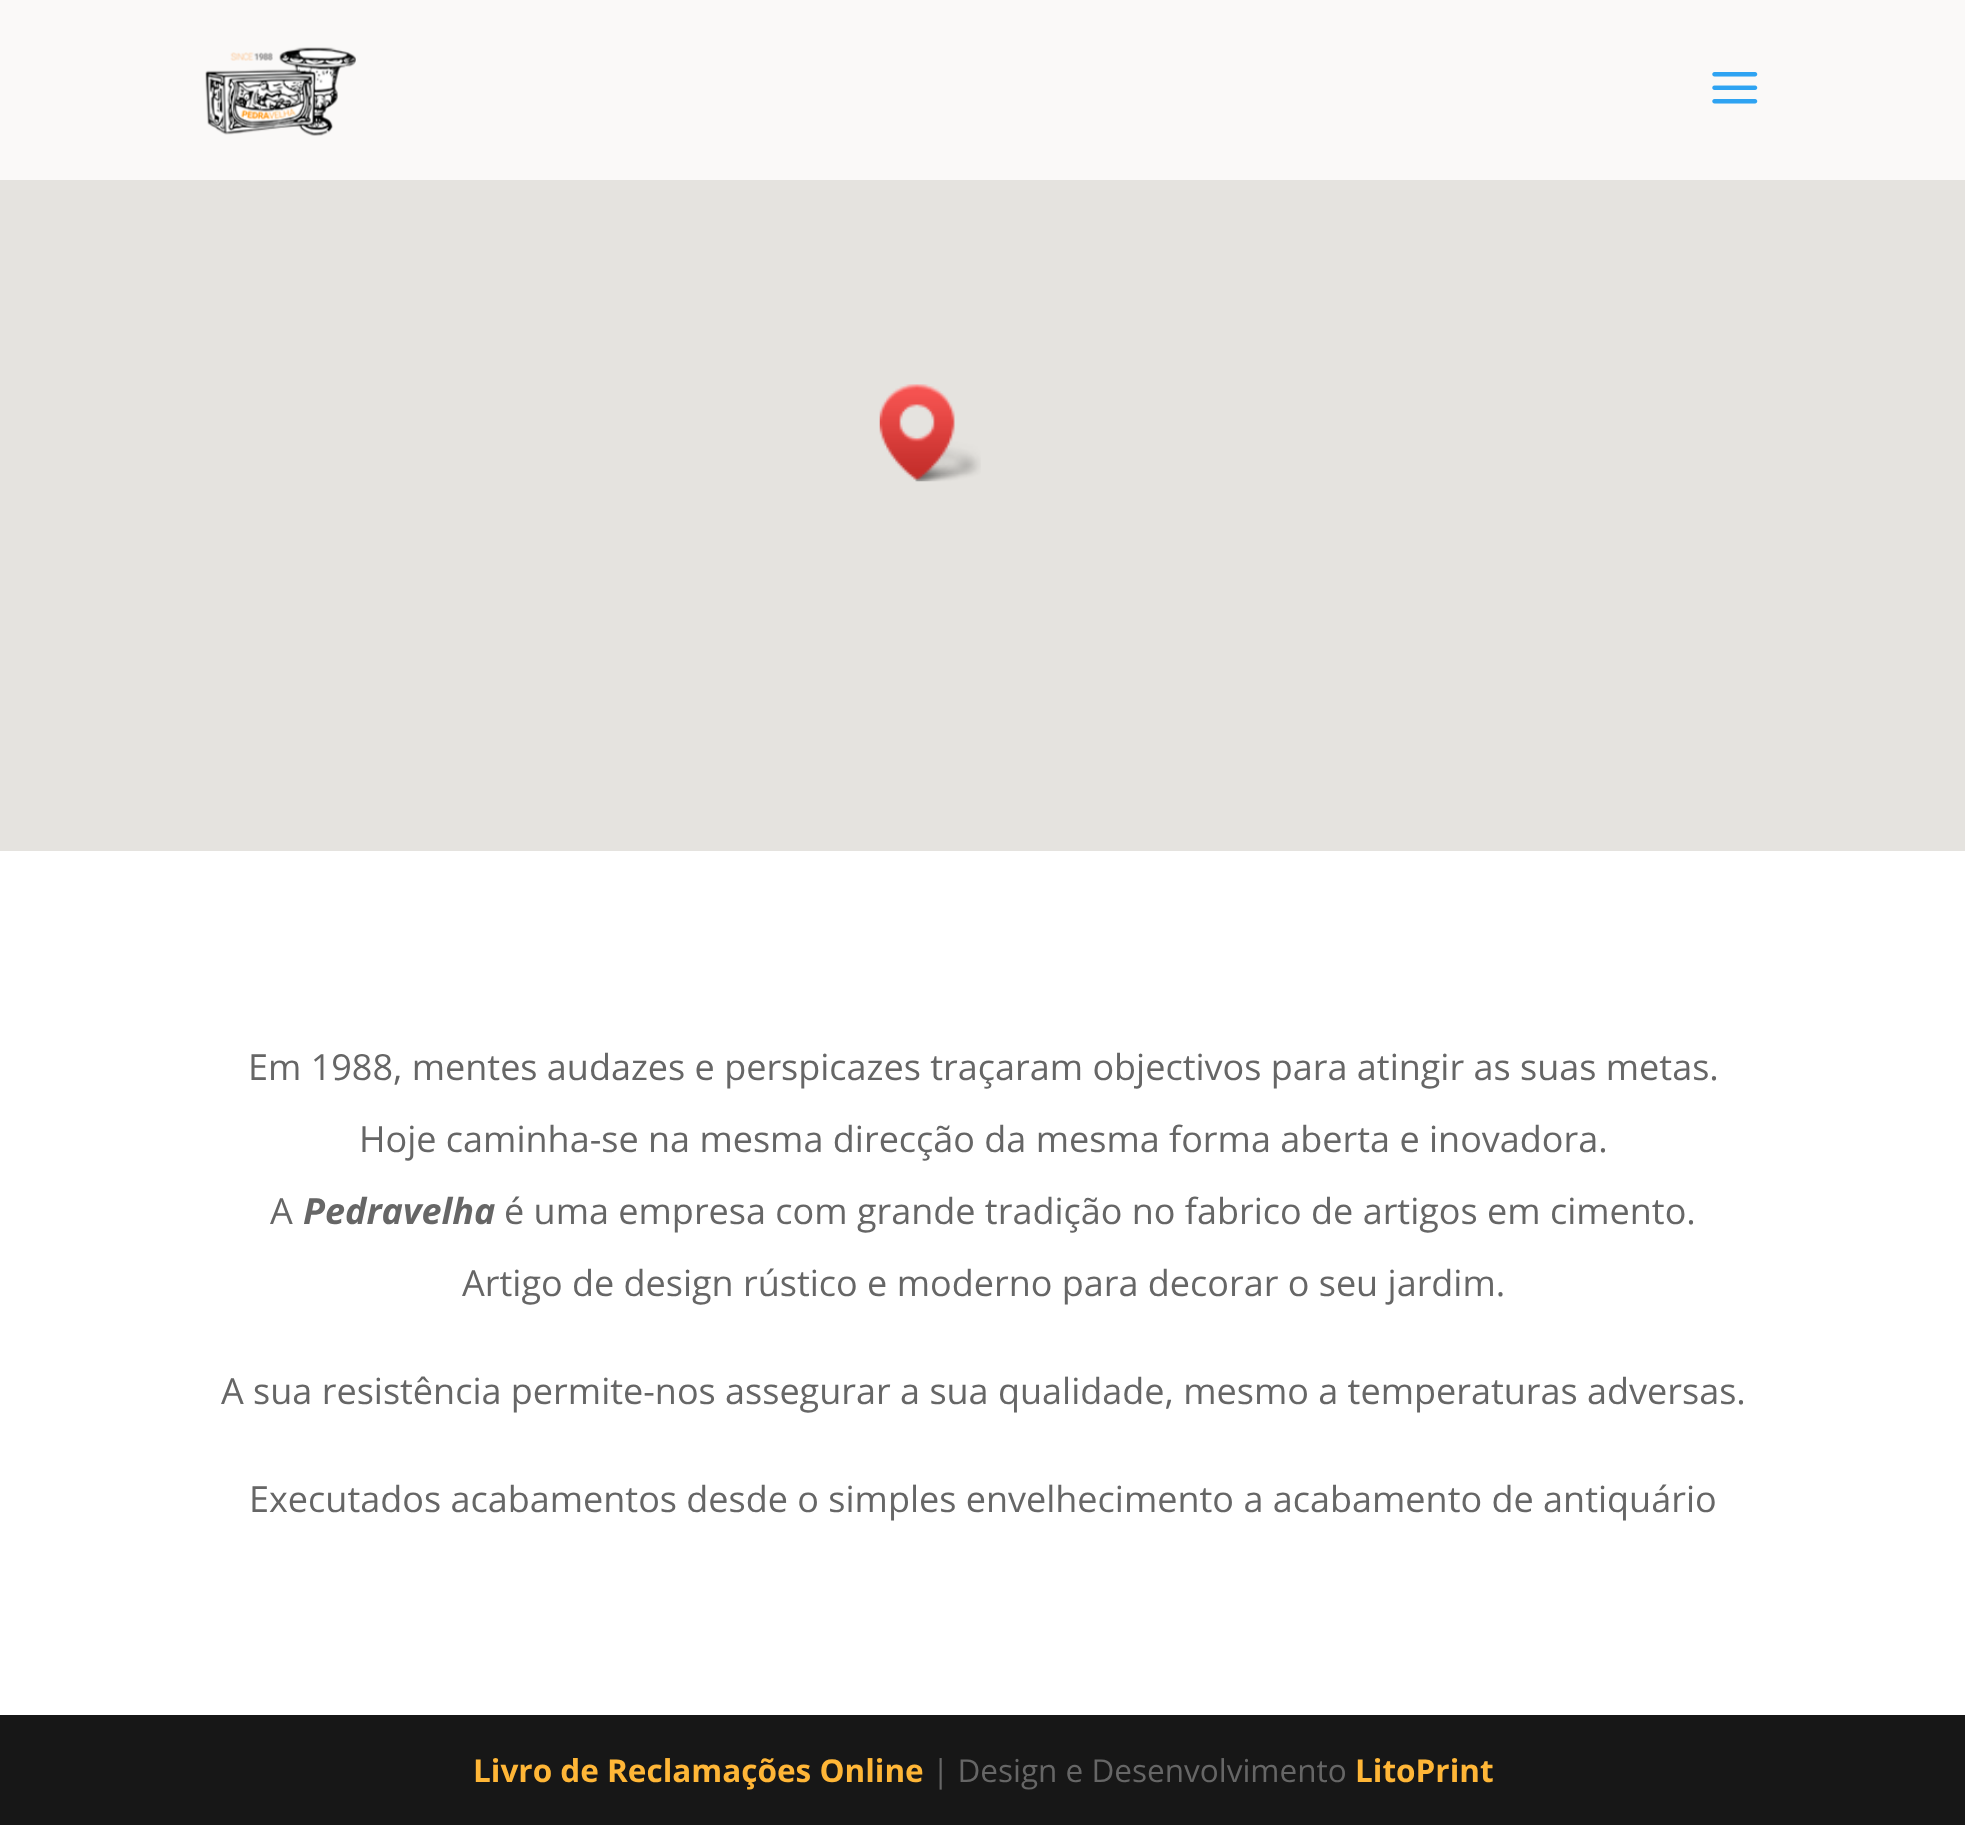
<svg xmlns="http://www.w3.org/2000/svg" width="1965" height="1825">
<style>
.a{font:36px Open Sans;fill:#666}
.b{font:italic bold 36px Open Sans;fill:#666}
.c{font:bold 31.5px Open Sans;fill:#ffb637}
.d{font:31.5px Open Sans;fill:#666}
</style>
<rect width="100%" height="100%" fill="#fff"/>
<path fill="#faf9f8" d="M0 0h1965v180H0z"/>
<image href="1.png" x="205" y="47" width="151" height="89"/>
<image href="2.png" x="1712" y="72" width="46" height="32"/>
<path fill="#e5e3df" d="M0 180h1965v671H0z"/>
<image href="3.png" x="879" y="384" width="102" height="98"/>
<path fill="#171717" d="M0 1715h1965v110H0z"/>
<text class="a" x="248" y="1080">Em 1988, mentes audazes e perspicazes traçaram objectivos para atingir as suas metas.</text>
<text class="a" x="359" y="1152">Hoje caminha-se na mesma direcção da mesma forma aberta e inovadora.</text>
<text class="a" x="270" y="1224">A</text>
<text class="b" x="303" y="1224">Pedravelha</text>
<text class="a" x="504" y="1224">é uma empresa com grande tradição no fabrico de artigos em cimento.</text>
<text class="a" x="462" y="1296">Artigo de design rústico e moderno para decorar o seu jardim.</text>
<text class="a" x="221" y="1404">A sua resistência permite-nos assegurar a sua qualidade, mesmo a temperaturas adversas.</text>
<text class="a" x="249" y="1512">Executados acabamentos desde o simples envelhecimento a acabamento de antiquário</text>
<text class="c" x="473" y="1782">Livro de Reclamações Online</text>
<text class="d" x="932" y="1782">| Design e Desenvolvimento</text>
<text class="c" x="1355" y="1782">LitoPrint</text>
</svg>
